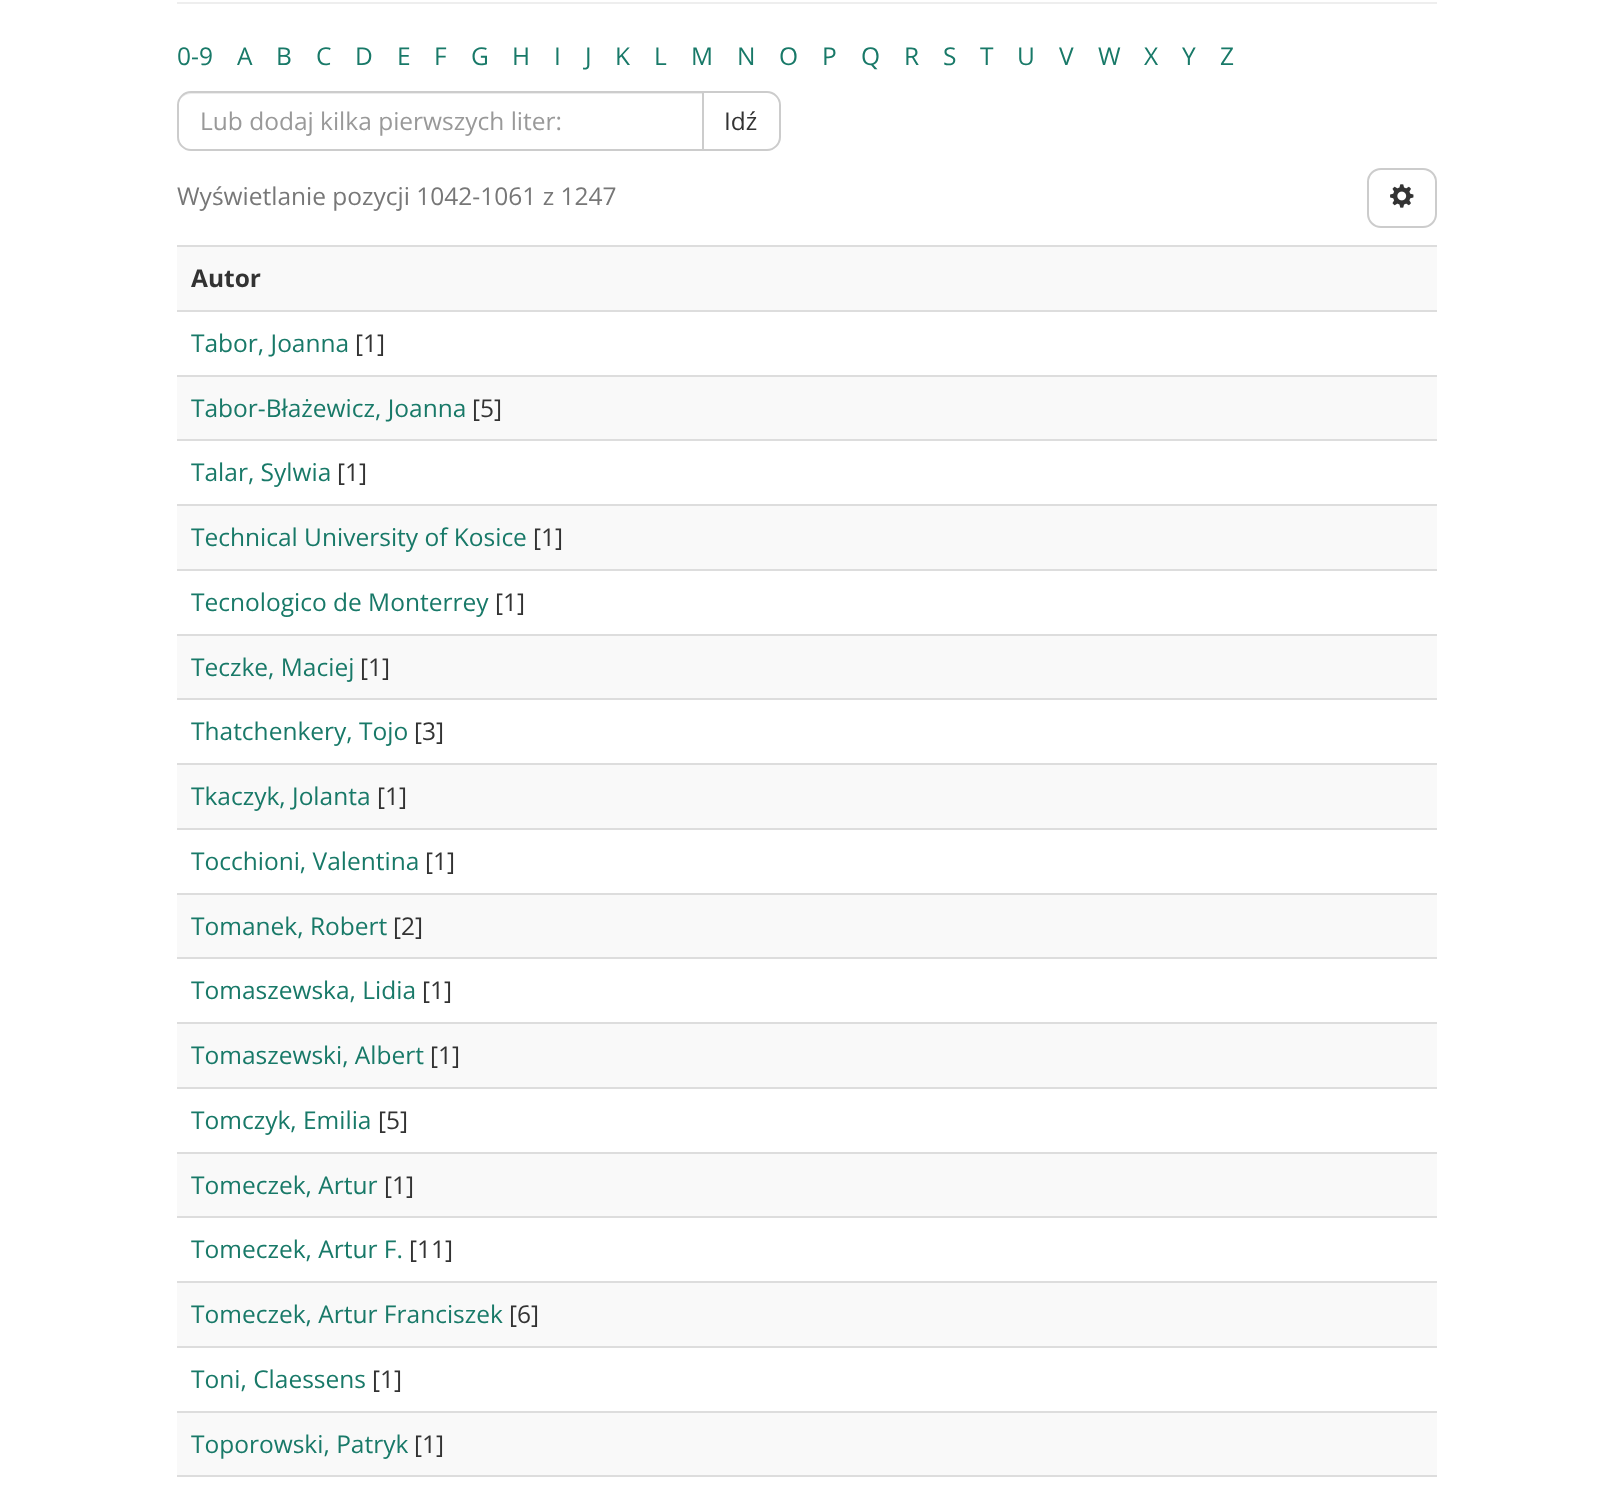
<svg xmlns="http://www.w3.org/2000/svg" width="1612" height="1487">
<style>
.a{font:24.5px Open Sans;fill:#187968}
.b{font:24.5px Open Sans;fill:#999}
.c{font:24.5px Open Sans;fill:#333}
.d{font:24.5px Open Sans;fill:#777}
.e{font:bold 24.5px Open Sans;fill:#333}
</style>
<rect width="100%" height="100%" fill="#fff"/>
<path fill="#eee" d="M177 2h1260v2H177z"/>
<path fill="none" stroke="#ccc" stroke-width="2" d="M703 92h64c7 0 13 6 13 13v32c0 7-6 13-13 13h-64z"/>
<path fill="#fff" d="M191 91h513v60h-513c-7.5 0-14-6.5-14-14v-32c0-7.5 6.5-14 14-14z"/>
<path fill="#ececec" d="M191 94h511v-1h-511c-5 0-9 3-11 7c2-3 6-6 11-6z"/>
<path fill="none" stroke="#ccc" stroke-width="2" d="M191 92h512v58h-512c-7 0-13-6-13-13v-32c0-7 6-13 13-13z"/>
<rect fill="none" stroke="#ccc" stroke-width="2" x="1368" y="169" width="68" height="58" rx="13"/>
<image href="1.png" x="1390" y="184" width="24" height="24"/>
<path fill="#f9f9f9" d="M177 247h1260v63H177z"/>
<path fill="#ddd" d="M177 245h1260v2H177z"/>
<path fill="#ddd" d="M177 310h1260v2H177z"/>
<path fill="#f9f9f9" d="M177 377h1260v62H177z"/>
<path fill="#ddd" d="M177 375h1260v2H177z"/>
<path fill="#ddd" d="M177 439h1260v2H177z"/>
<path fill="#f9f9f9" d="M177 506h1260v63H177z"/>
<path fill="#ddd" d="M177 504h1260v2H177z"/>
<path fill="#ddd" d="M177 569h1260v2H177z"/>
<path fill="#f9f9f9" d="M177 636h1260v62H177z"/>
<path fill="#ddd" d="M177 634h1260v2H177z"/>
<path fill="#ddd" d="M177 698h1260v2H177z"/>
<path fill="#f9f9f9" d="M177 765h1260v63H177z"/>
<path fill="#ddd" d="M177 763h1260v2H177z"/>
<path fill="#ddd" d="M177 828h1260v2H177z"/>
<path fill="#f9f9f9" d="M177 895h1260v62H177z"/>
<path fill="#ddd" d="M177 893h1260v2H177z"/>
<path fill="#ddd" d="M177 957h1260v2H177z"/>
<path fill="#f9f9f9" d="M177 1024h1260v63H177z"/>
<path fill="#ddd" d="M177 1022h1260v2H177z"/>
<path fill="#ddd" d="M177 1087h1260v2H177z"/>
<path fill="#f9f9f9" d="M177 1154h1260v62H177z"/>
<path fill="#ddd" d="M177 1152h1260v2H177z"/>
<path fill="#ddd" d="M177 1216h1260v2H177z"/>
<path fill="#f9f9f9" d="M177 1283h1260v63H177z"/>
<path fill="#ddd" d="M177 1281h1260v2H177z"/>
<path fill="#ddd" d="M177 1346h1260v2H177z"/>
<path fill="#f9f9f9" d="M177 1413h1260v62H177z"/>
<path fill="#ddd" d="M177 1411h1260v2H177z"/>
<path fill="#ddd" d="M177 1475h1260v2H177z"/>
<text class="a" x="177" y="65">0-9</text>
<text class="a" x="237" y="65">A</text>
<text class="a" x="276" y="65">B</text>
<text class="a" x="316" y="65">C</text>
<text class="a" x="355" y="65">D</text>
<text class="a" x="397" y="65">E</text>
<text class="a" x="434" y="65">F</text>
<text class="a" x="471" y="65">G</text>
<text class="a" x="512" y="65">H</text>
<text class="a" x="554" y="65">I</text>
<text class="a" x="585" y="65">J</text>
<text class="a" x="615" y="65">K</text>
<text class="a" x="654" y="65">L</text>
<text class="a" x="691" y="65">M</text>
<text class="a" x="737" y="65">N</text>
<text class="a" x="779" y="65">O</text>
<text class="a" x="822" y="65">P</text>
<text class="a" x="861" y="65">Q</text>
<text class="a" x="904" y="65">R</text>
<text class="a" x="943" y="65">S</text>
<text class="a" x="980" y="65">T</text>
<text class="a" x="1017" y="65">U</text>
<text class="a" x="1059" y="65">V</text>
<text class="a" x="1098" y="65">W</text>
<text class="a" x="1144" y="65">X</text>
<text class="a" x="1182" y="65">Y</text>
<text class="a" x="1220" y="65">Z</text>
<text class="b" x="200" y="130">Lub dodaj kilka pierwszych liter:</text>
<text class="c" x="724" y="130">Idź</text>
<text class="d" x="177" y="205">Wyświetlanie pozycji 1042-1061 z 1247</text>
<text class="e" x="191" y="287">Autor</text>
<text class="a" x="191" y="352">Tabor, Joanna</text>
<text class="c" x="355" y="352">[1]</text>
<text class="a" x="191" y="417">Tabor-Błażewicz, Joanna</text>
<text class="c" x="472" y="417">[5]</text>
<text class="a" x="191" y="481">Talar, Sylwia</text>
<text class="c" x="337" y="481">[1]</text>
<text class="a" x="191" y="546">Technical University of Kosice</text>
<text class="c" x="533" y="546">[1]</text>
<text class="a" x="191" y="611">Tecnologico de Monterrey</text>
<text class="c" x="495" y="611">[1]</text>
<text class="a" x="191" y="676">Teczke, Maciej</text>
<text class="c" x="360" y="676">[1]</text>
<text class="a" x="191" y="740">Thatchenkery, Tojo</text>
<text class="c" x="414" y="740">[3]</text>
<text class="a" x="191" y="805">Tkaczyk, Jolanta</text>
<text class="c" x="377" y="805">[1]</text>
<text class="a" x="191" y="870">Tocchioni, Valentina</text>
<text class="c" x="425" y="870">[1]</text>
<text class="a" x="191" y="935">Tomanek, Robert</text>
<text class="c" x="393" y="935">[2]</text>
<text class="a" x="191" y="999">Tomaszewska, Lidia</text>
<text class="c" x="422" y="999">[1]</text>
<text class="a" x="191" y="1064">Tomaszewski, Albert</text>
<text class="c" x="430" y="1064">[1]</text>
<text class="a" x="191" y="1129">Tomczyk, Emilia</text>
<text class="c" x="378" y="1129">[5]</text>
<text class="a" x="191" y="1194">Tomeczek, Artur</text>
<text class="c" x="384" y="1194">[1]</text>
<text class="a" x="191" y="1258">Tomeczek, Artur F.</text>
<text class="c" x="409" y="1258">[11]</text>
<text class="a" x="191" y="1323">Tomeczek, Artur Franciszek</text>
<text class="c" x="509" y="1323">[6]</text>
<text class="a" x="191" y="1388">Toni, Claessens</text>
<text class="c" x="372" y="1388">[1]</text>
<text class="a" x="191" y="1453">Toporowski, Patryk</text>
<text class="c" x="414" y="1453">[1]</text>
</svg>
